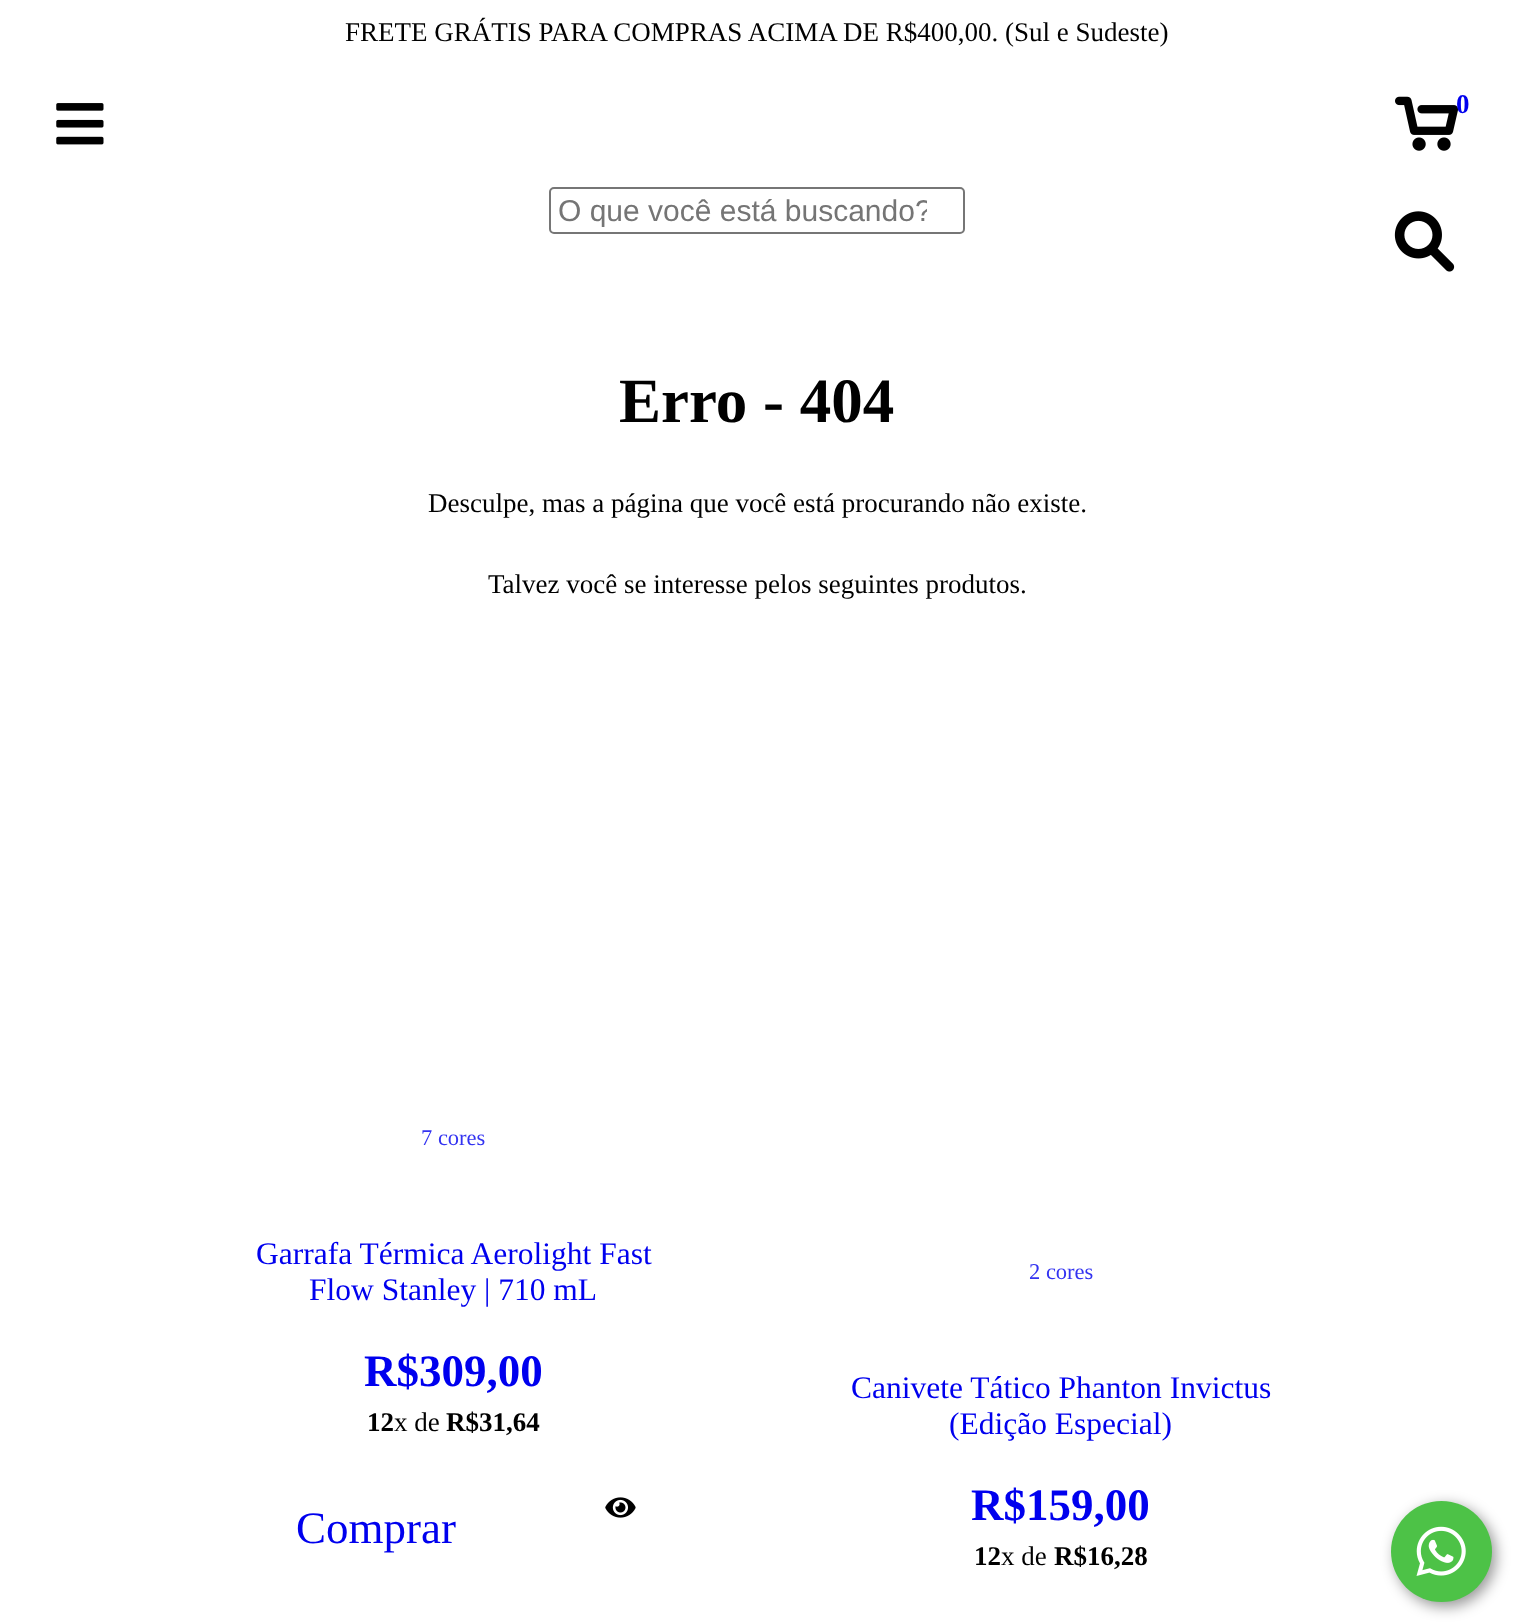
<svg xmlns="http://www.w3.org/2000/svg" width="1513" height="1624">
<style>
.a{font:27px Liberation Serif;fill:#000}
.b{font:bold 27px Liberation Serif;fill:#00e}
.c{font:30px Liberation Sans;fill:#757575}
.d{font:bold 63px Liberation Serif;fill:#000}
.e{font:22.5px Liberation Serif;fill:#3333f1}
.f{font:31.5px Liberation Serif;fill:#00e}
.g{font:bold 45px Liberation Serif;fill:#00e}
.h{font:bold 27px Liberation Serif;fill:#000}
.i{font:45px Liberation Serif;fill:#00e}
</style>
<defs>
<clipPath id="clip1"><path d="M558 194h369v33H558z"/></clipPath>
</defs>
<rect width="100%" height="100%" fill="#fff"/>
<image href="1.png" x="56" y="103" width="48" height="42"/>
<image href="2.png" x="1395" y="96" width="64" height="55"/>
<rect fill="none" stroke="#767676" stroke-width="2" x="550" y="188" width="414" height="45" rx="4"/>
<image href="3.png" x="1394" y="211" width="61" height="61"/>
<image href="4.png" x="605" y="1497" width="31" height="21"/>
<rect fill="#00000066" filter="blur(7px)" x="1395" y="1505" width="101" height="102" rx="50.5"/>
<circle fill="#4dc247" cx="1441.5" cy="1551.5" r="50.5"/>
<image href="5.png" x="1416" y="1526" width="50" height="50"/>
<text class="a" x="345" y="41">FRETE GRÁTIS PARA COMPRAS ACIMA DE R$400,00. (Sul e Sudeste)</text>
<text class="b" x="1456" y="113">0</text>
<g clip-path="url(#clip1)">
<text class="c" x="558" y="221">O que você está buscando?</text>
</g>
<text class="d" x="619" y="422">Erro - 404</text>
<text class="a" x="428" y="512">Desculpe, mas a página que você está procurando não existe.</text>
<text class="a" x="488" y="593">Talvez você se interesse pelos seguintes produtos.</text>
<text class="e" x="421" y="1145">7 cores</text>
<text class="f" x="256" y="1264">Garrafa Térmica Aerolight Fast</text>
<text class="f" x="309" y="1300">Flow Stanley | 710 mL</text>
<text class="g" x="364" y="1386">R$309,00</text>
<text class="h" x="367" y="1431">12</text>
<text class="a" x="394" y="1431">x de</text>
<text class="h" x="446" y="1431">R$31,64</text>
<text class="i" x="296" y="1543">Comprar</text>
<text class="e" x="1029" y="1279">2 cores</text>
<text class="f" x="851" y="1398">Canivete Tático Phanton Invictus</text>
<text class="f" x="949" y="1434">(Edição Especial)</text>
<text class="g" x="971" y="1520">R$159,00</text>
<text class="h" x="974" y="1565">12</text>
<text class="a" x="1001" y="1565">x de</text>
<text class="h" x="1054" y="1565">R$16,28</text>
</svg>
